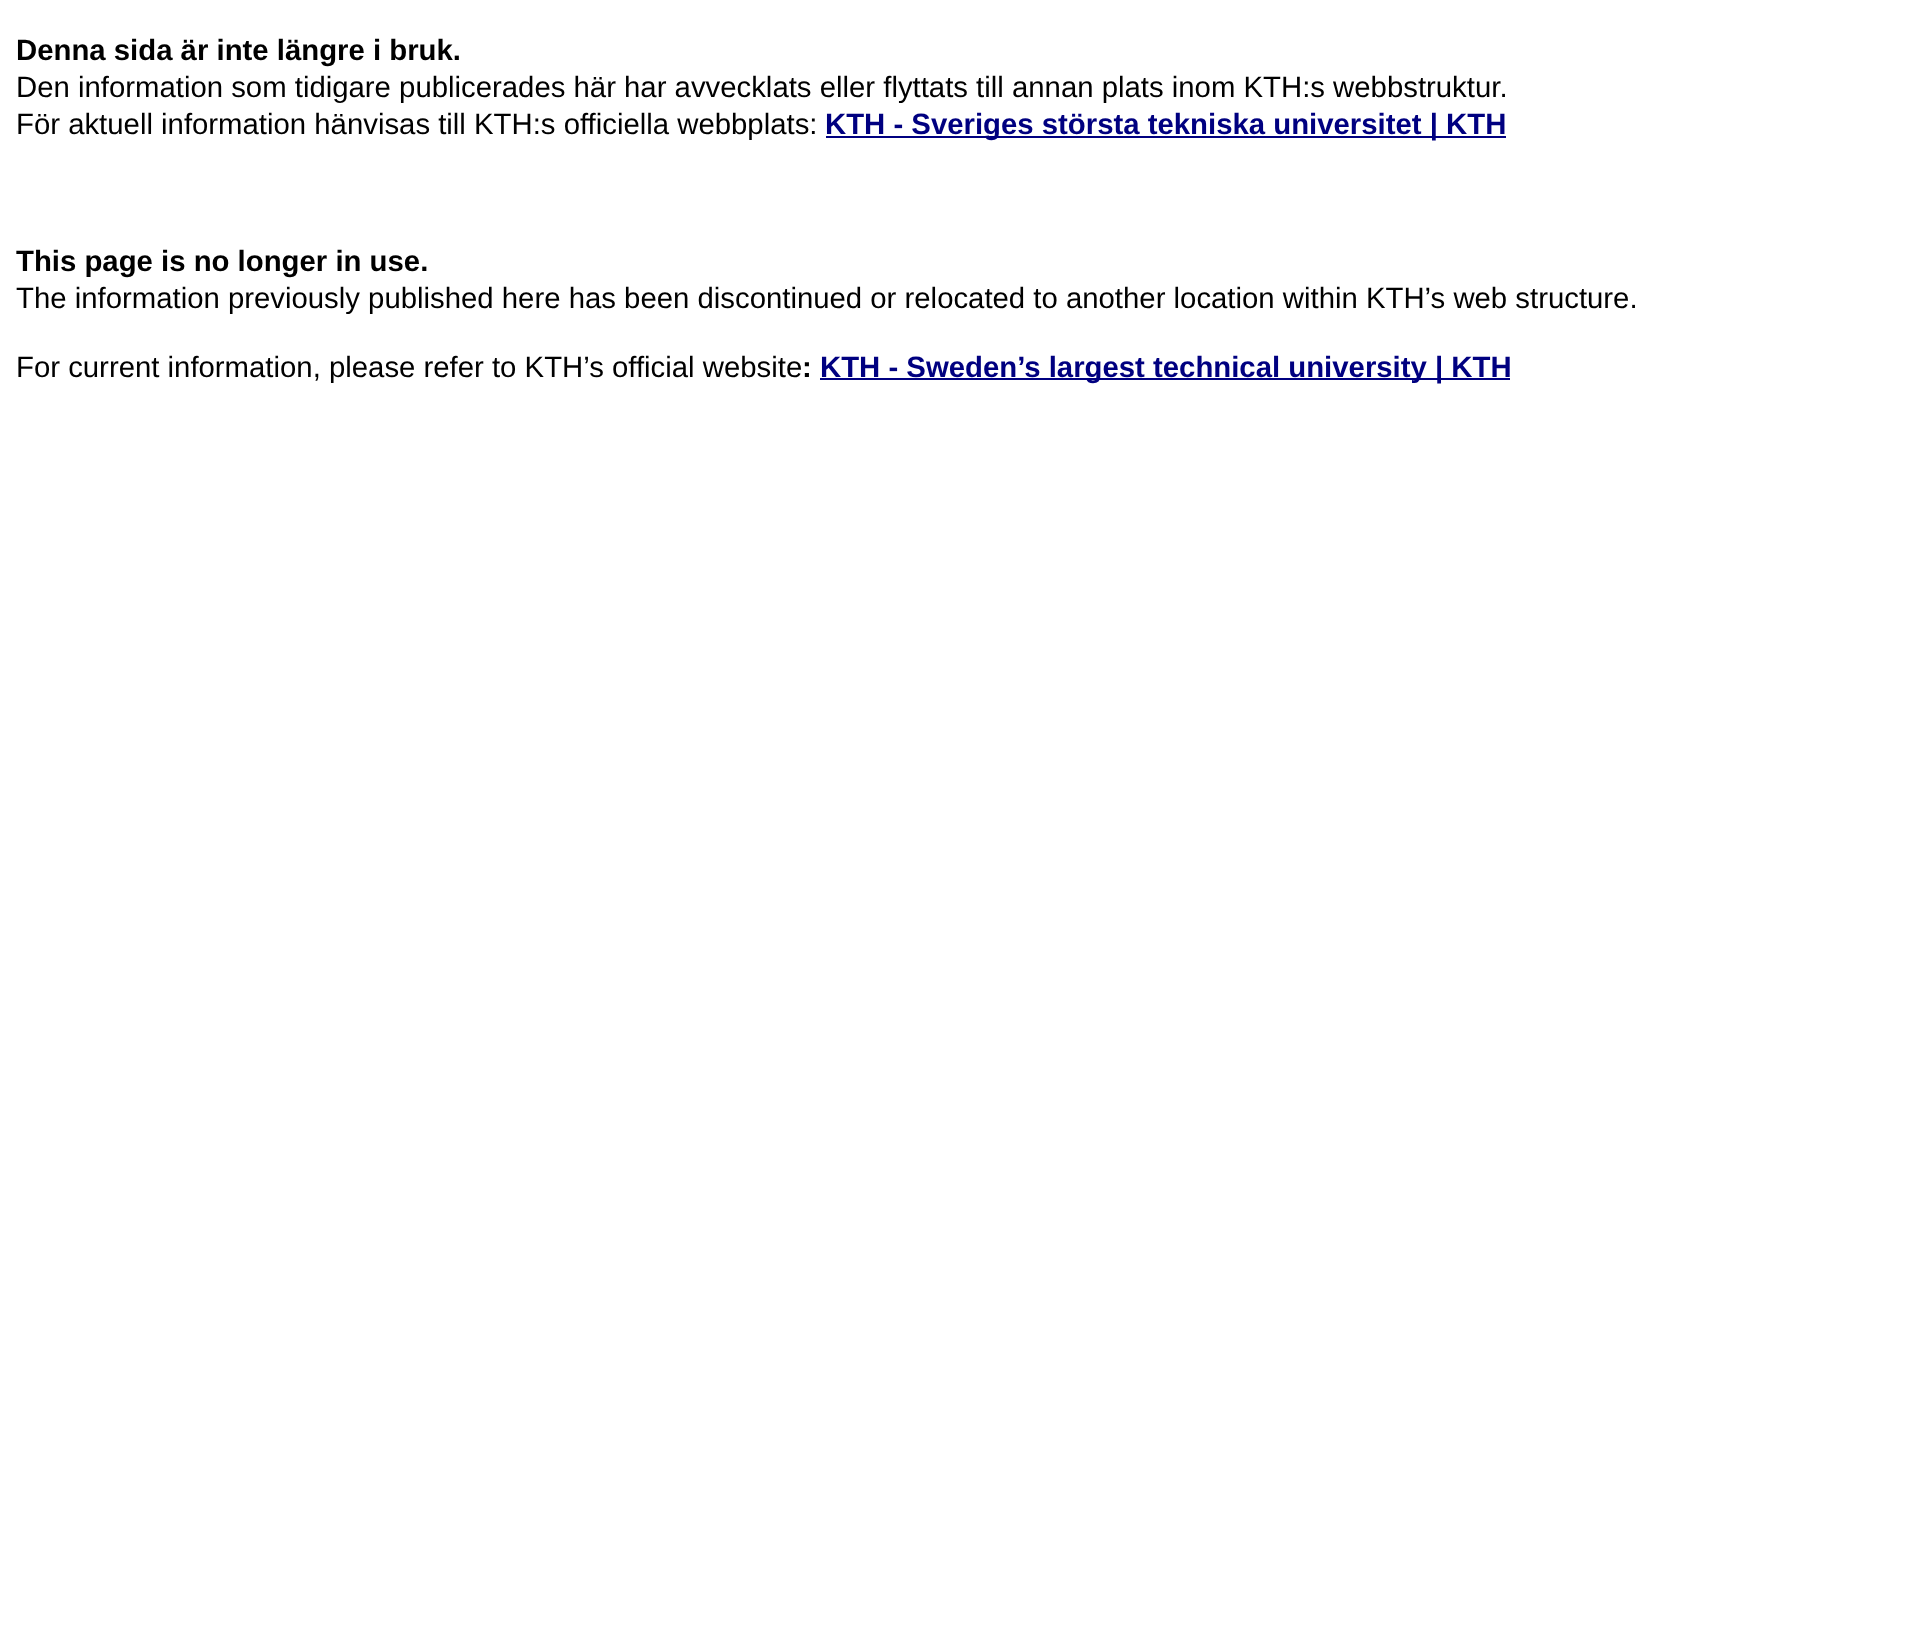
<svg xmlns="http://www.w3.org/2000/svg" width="1921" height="1648">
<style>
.a{font:bold 29.33px Liberation Sans;fill:#000}
.b{font:29.33px Liberation Sans;fill:#000}
.c{font:bold 29.33px Liberation Sans;fill:#000080}
</style>
<rect width="100%" height="100%" fill="#fff"/>
<path fill="#000080" d="M826 136h680v2H826z"/>
<path fill="#000080" d="M820 378h690v2H820z"/>
<text class="a" x="16" y="60">Denna sida är inte längre i bruk.</text>
<text class="b" x="16" y="97">Den information som tidigare publicerades här har avvecklats eller flyttats till annan plats inom KTH:s webbstruktur.</text>
<text class="b" x="16" y="134">För aktuell information hänvisas till KTH:s officiella webbplats:</text>
<text class="c" x="825" y="134">KTH - Sveriges största tekniska universitet | KTH</text>
<text class="a" x="16" y="271">This page is no longer in use.</text>
<text class="b" x="16" y="308">The information previously published here has been discontinued or relocated to another location within KTH’s web structure.</text>
<text class="b" x="16" y="377">For current information, please refer to KTH’s official website</text>
<text class="a" x="802" y="377">:</text>
<text class="c" x="820" y="377">KTH - Sweden’s largest technical university | KTH</text>
</svg>
